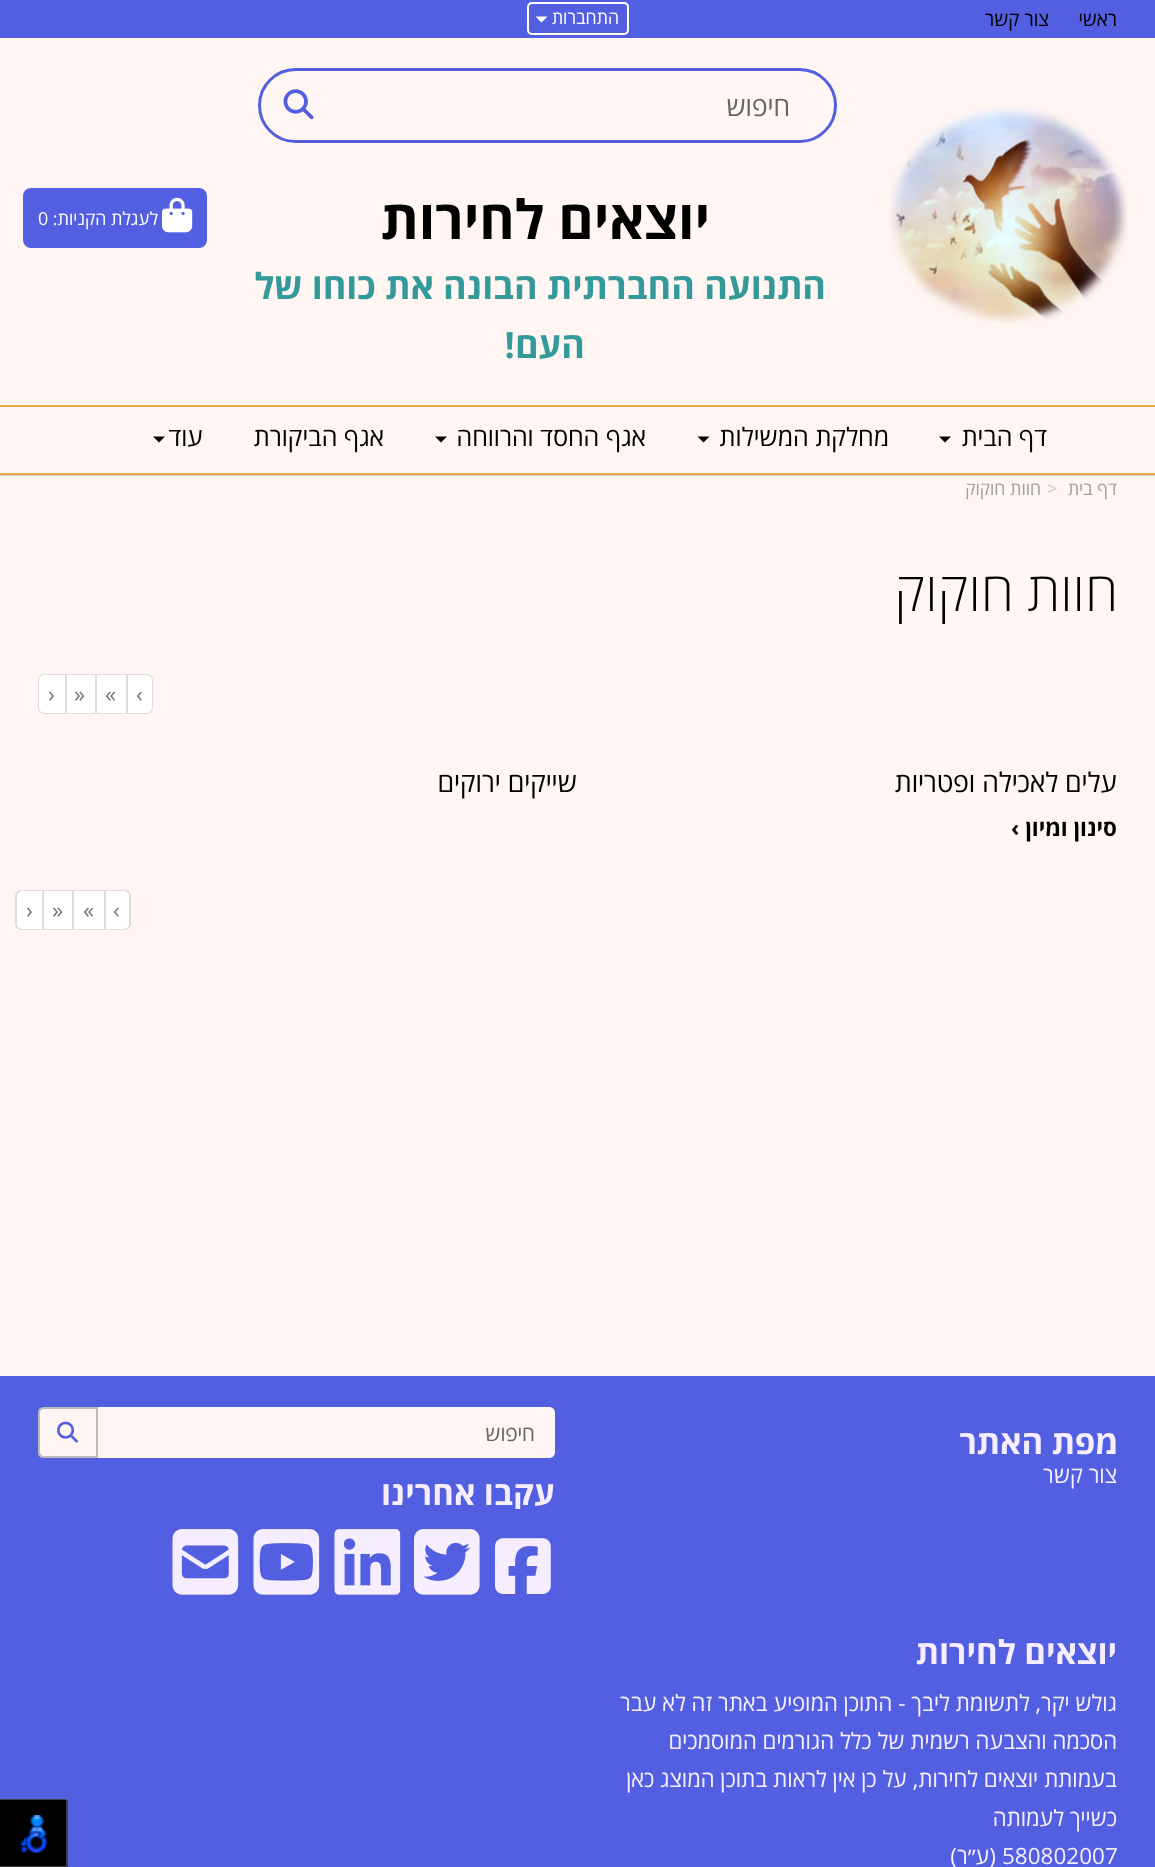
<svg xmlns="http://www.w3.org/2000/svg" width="1155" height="1867">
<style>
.a{font:18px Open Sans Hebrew;direction:rtl;fill:#fff}
.b{font:19.5px Open Sans Hebrew;direction:rtl;fill:#000}
.c{font:27px Open Sans Hebrew;direction:rtl;fill:#666}
.d{font:bold 54px Open Sans Hebrew;direction:rtl;fill:#000}
.e{font:bold 36px Open Sans Hebrew;direction:rtl;fill:#399}
.f{font:18px Open Sans Hebrew;fill:#fff}
.g{font:25.5px Open Sans Hebrew;direction:rtl;fill:#000}
.h{font:18px Open Sans Hebrew;direction:rtl;fill:#a0a0a0}
.i{font:18px Open Sans Hebrew;fill:#ccc}
.j{font:300 54px Open Sans Hebrew;direction:rtl;fill:#000}
.k{font:22.5px Open Sans Hebrew;fill:#777}
.l{font:27px Open Sans Hebrew;direction:rtl;fill:#000}
.m{font:bold 22.5px Open Sans Hebrew;direction:rtl;fill:#000}
.n{font:bold 33px Open Sans Hebrew;direction:rtl;fill:#f6eeff}
.o{font:22.5px Open Sans Hebrew;direction:rtl;fill:#f6eeff}
.p{font:21px Open Sans Hebrew;direction:rtl;fill:#666}
.q{font:22.5px Open Sans Hebrew;fill:#f6eeff}
</style>
<defs>
<clipPath id="clip1"><path d="M0 1800h68v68H0z"/></clipPath>
<clipPath id="clip2"><path d="M38 1473h517v36H38z"/></clipPath>
</defs>
<rect width="100%" height="100%" fill="#fff6f4"/>
<path fill="#525fe1" d="M0 0h1155v38H0z"/>
<rect fill="none" stroke="#fff" stroke-width="2" x="528" y="3" width="100" height="31" rx="4"/>
<path fill="#fff" d="M535.5 16.5h12l-6 6z"/>
<path fill="#cdcdcd" d="M0 475h1155v1H0z"/>
<image href="1.png" x="889" y="106" width="239" height="218"/>
<rect fill="none" stroke="#525fe1" stroke-width="3" x="259.5" y="69.5" width="576" height="72" rx="36"/>
<image href="2.png" x="283" y="89" width="31" height="31"/>
<rect fill="#525fe1" x="23" y="188" width="184" height="60" rx="8"/>
<image href="3.png" x="162" y="197" width="31" height="36"/>
<path fill="#e5ae4c" d="M0 405h1155v2H0z"/>
<path fill="#e5ae4c" d="M0 473h1155v2H0z"/>
<path fill="#000" d="M939 436.5h12l-6 6z"/>
<path fill="#000" d="M697.5 436.5h12l-6 6z"/>
<path fill="#000" d="M435 436.5h12l-6 6z"/>
<path fill="#000" d="M153 436.5h12l-6 6z"/>
<rect fill="none" stroke="#ddd" stroke-width="2" x="39" y="675" width="113" height="38" rx="5"/>
<path fill="#fff" d="M126 675h20c3.5 0 6 2.5 6 6v26c0 3.5-2.5 6-6 6h-20z"/>
<path fill="#ddd" d="M126 675h2v38H126z"/>
<path fill="#fff" d="M97 675h29v38H97z"/>
<path fill="#ddd" d="M95 675h2v38H95z"/>
<path fill="#fff" d="M67 675h28v38H67z"/>
<path fill="#ddd" d="M65 675h2v38H65z"/>
<path fill="#fff" d="M45 675h20v38h-20c-3.5 0-6-2.5-6-6v-26c0-3.5 2.5-6 6-6z"/>
<rect fill="none" stroke="#ddd" stroke-width="2" x="16" y="891" width="114" height="38" rx="5"/>
<path fill="#fff" d="M104 891h19c3.5 0 6 2.5 6 6v26c0 3.5-2.5 6-6 6h-19z"/>
<path fill="#ddd" d="M104 891h2v38H104z"/>
<path fill="#fff" d="M74 891h30v38H74z"/>
<path fill="#ddd" d="M72 891h2v38H72z"/>
<path fill="#fff" d="M44 891h28v38H44z"/>
<path fill="#ddd" d="M42 891h2v38H42z"/>
<path fill="#fff" d="M23 891h19v38h-19c-3.5 0-6-2.5-6-6v-26c0-3.5 2.5-6 6-6z"/>
<path fill="#525fe1" d="M0 1376h1155v491H0z"/>
<path fill="#fff6f4" d="M96 1407h453c3.5 0 6 2.5 6 6v39c0 3.5-2.5 6-6 6h-453z"/>
<path fill="#fff6f4" stroke="#bbb" stroke-width="2" d="M44 1408h53v49h-53c-3 0-5-2-5-5v-39c0-3 2-5 5-5z"/>
<image href="4.png" x="57" y="1421" width="21" height="22"/>
<image href="5.png" x="495" y="1538" width="56" height="56"/>
<image href="6.png" x="414" y="1529" width="66" height="66"/>
<image href="7.png" x="334" y="1529" width="67" height="66"/>
<image href="8.png" x="253" y="1529" width="67" height="66"/>
<image href="9.png" x="172" y="1529" width="67" height="66"/>
<path fill="#404040" d="M-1 1799v67h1v-66h66v-1z"/>
<path fill="#000" d="M0 1800h66v66H0z"/>
<g clip-path="url(#clip1)">
<path fill="#404040" fill-rule="evenodd" d="M-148 1652h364v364h-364zm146 146h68v68h-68z"/>
</g>
<image href="10.png" x="19" y="1815" width="29" height="38"/>
<text class="a" x="619" y="24">התחברות</text>
<text class="b" x="1117" y="26">ראשי</text>
<text class="b" x="1049" y="26">צור קשר</text>
<text class="c" x="790" y="116">חיפוש</text>
<text class="d" x="710" y="239">יוצאים לחירות</text>
<text class="e" x="826" y="299">התנועה החברתית הבונה את כוחו של</text>
<text class="e" x="585" y="358">העם!</text>
<text class="a" x="158" y="225">לעגלת הקניות:</text>
<text class="f" x="38" y="225">0</text>
<text class="g" x="1047" y="446">דף הבית</text>
<text class="g" x="889" y="446">מחלקת המשילות</text>
<text class="g" x="646" y="446">אגף החסד והרווחה</text>
<text class="g" x="384" y="446">אגף הביקורת</text>
<text class="g" x="203" y="446">עוד</text>
<text class="h" x="1117" y="495">דף בית</text>
<text class="i" x="1047" y="495">&gt;</text>
<text class="h" x="1041" y="495">חוות חוקוק</text>
<text class="j" x="1118" y="611">חוות חוקוק</text>
<text class="k" x="136" y="702">‹</text>
<text class="k" x="105" y="702">«</text>
<text class="k" x="74" y="702">»</text>
<text class="k" x="48" y="702">›</text>
<text class="l" x="1117" y="792">עלים לאכילה ופטריות</text>
<text class="l" x="577" y="792">שייקים ירוקים</text>
<text class="m" x="1117" y="836">סינון ומיון ›</text>
<text class="k" x="113" y="918">‹</text>
<text class="k" x="83" y="918">«</text>
<text class="k" x="52" y="918">»</text>
<text class="k" x="26" y="918">›</text>
<text class="n" x="1118" y="1454">מפת האתר</text>
<text class="o" x="1117" y="1483">צור קשר</text>
<text class="p" x="535" y="1441">חיפוש</text>
<g clip-path="url(#clip2)">
<text class="n" x="555" y="1505">עקבו אחרינו</text>
</g>
<text class="n" x="1117" y="1664">יוצאים לחירות</text>
<text class="o" x="1117" y="1711">גולש יקר, לתשומת ליבך - התוכן המופיע באתר זה לא עבר</text>
<text class="o" x="1117" y="1749">הסכמה והצבעה רשמית של כלל הגורמים המוסמכים</text>
<text class="o" x="1117" y="1787">בעמותת יוצאים לחירות, על כן אין לראות בתוכן המוצג כאן</text>
<text class="o" x="1117" y="1826">כשייך לעמותה</text>
<text class="q" x="1002" y="1864">580802007</text>
<text class="o" x="996" y="1864">(ע״ר)</text>
</svg>
